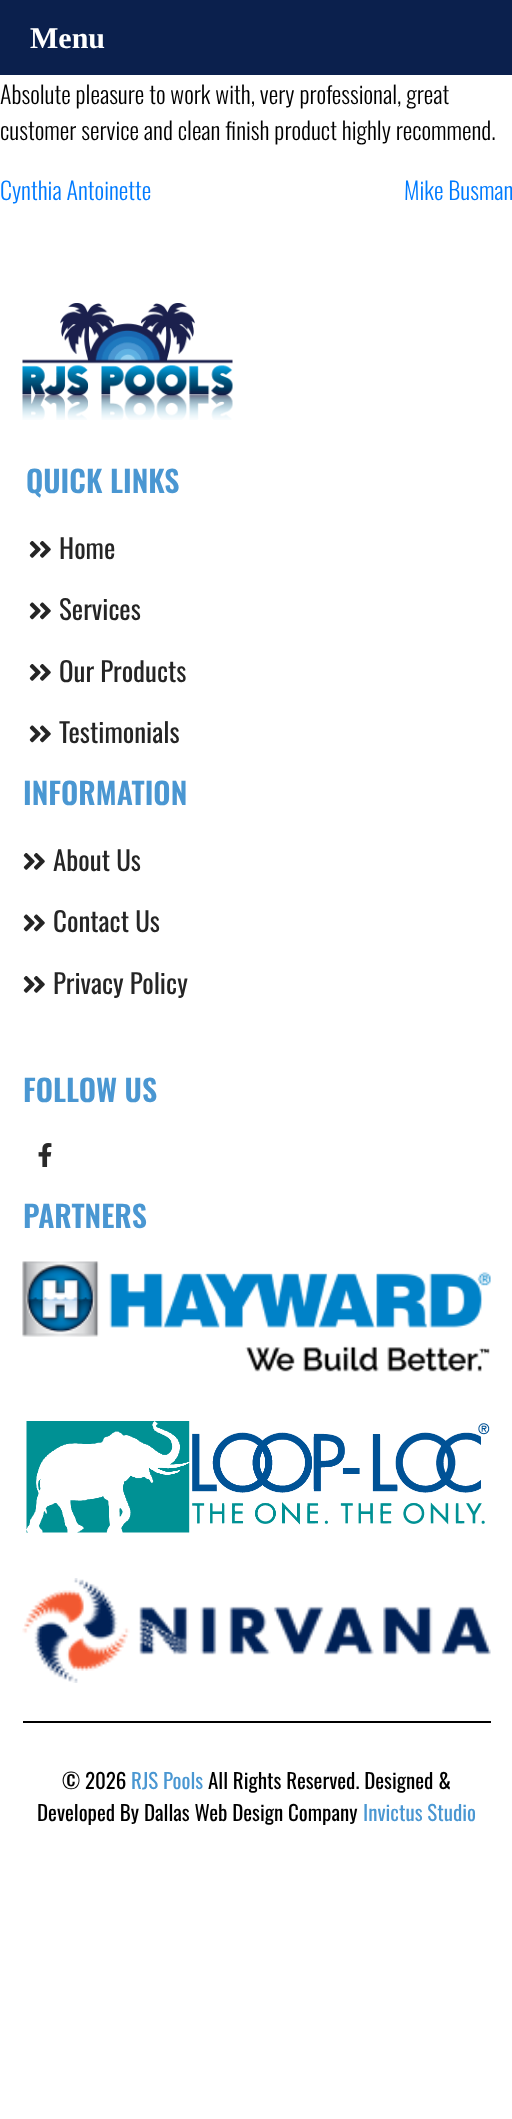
<svg xmlns="http://www.w3.org/2000/svg" width="512" height="2119">
<style>
.a{font:bold 30px Liberation Serif;fill:#fff}
.b{font:300 24px Oswald;fill:#000}
.c{font:300 24px Oswald;fill:#007bff}
.d{font:600 30px Oswald;fill:#4a97d2}
.e{font:27px Oswald;fill:#252525}
.f{font:21px Oswald;fill:#000}
.g{font:21px Oswald;fill:#4a97d2}
</style>
<rect width="100%" height="100%" fill="#fff"/>
<path fill="#0b204d" d="M0 0h512v75H0z"/>
<image href="1.png" x="22" y="303" width="211" height="117"/>
<image href="2.png" x="29" y="541" width="22" height="17"/>
<image href="3.png" x="29" y="602" width="22" height="18"/>
<image href="2.png" x="29" y="664" width="22" height="17"/>
<image href="3.png" x="29" y="725" width="22" height="18"/>
<image href="2.png" x="23" y="853" width="22" height="17"/>
<image href="3.png" x="23" y="914" width="22" height="18"/>
<image href="2.png" x="23" y="976" width="22" height="17"/>
<image href="4.png" x="38" y="1143" width="14" height="24"/>
<image href="5.png" x="22" y="1261" width="469" height="111"/>
<image href="6.png" x="26" y="1421" width="464" height="112"/>
<image href="7.png" x="22" y="1578" width="469" height="105"/>
<path fill="#000" d="M23 1721h468v2H23z"/>
<text class="a" x="30" y="48">Menu</text>
<text class="b" x="0" y="104">Absolute pleasure to work with, very professional, great</text>
<text class="b" x="0" y="140">customer service and clean finish product highly recommend.</text>
<text class="c" x="0" y="200">Cynthia Antoinette</text>
<text class="c" x="404" y="200">Mike Busman</text>
<text class="d" x="26" y="493">QUICK LINKS</text>
<text class="e" x="59" y="559">Home</text>
<text class="e" x="59" y="620">Services</text>
<text class="e" x="59" y="682">Our Products</text>
<text class="e" x="59" y="743">Testimonials</text>
<text class="d" x="23" y="805">INFORMATION</text>
<text class="e" x="53" y="871">About Us</text>
<text class="e" x="53" y="932">Contact Us</text>
<text class="e" x="53" y="994">Privacy Policy</text>
<text class="d" x="23" y="1102">FOLLOW US</text>
<text class="d" x="23" y="1228">PARTNERS</text>
<text class="f" x="62" y="1789">© 2026</text>
<text class="g" x="131" y="1789">RJS Pools</text>
<text class="f" x="208" y="1789">All Rights Reserved. Designed &amp;</text>
<text class="f" x="37" y="1821">Developed By Dallas Web Design Company</text>
<text class="g" x="363" y="1821">Invictus Studio</text>
</svg>
